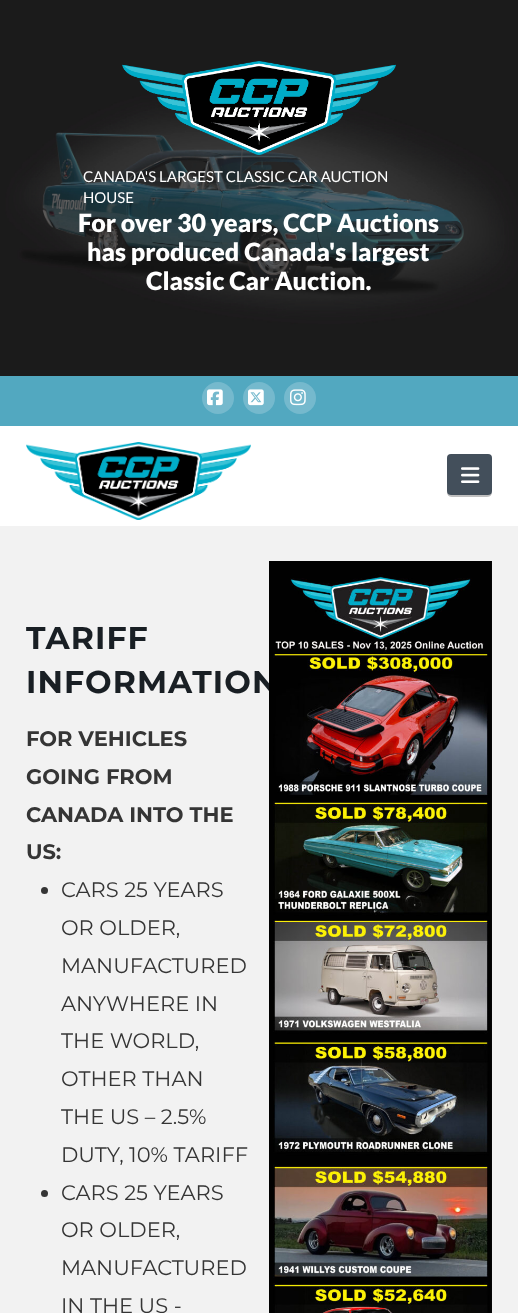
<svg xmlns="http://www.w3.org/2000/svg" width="518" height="1313">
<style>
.a{font:15px Lato;fill:#fff}
.b{font:900 25px Lato;fill:#fff}
.c{font:bold 31.5px Montserrat;letter-spacing:1.1px;fill:#191f24}
.d{font:bold 21px Montserrat;fill:#353535}
.e{font:21px Montserrat;fill:#353535}
</style>
<rect width="100%" height="100%" fill="#fff"/>
<image href="1.png" x="0" y="0" width="518" height="376"/>
<image href="2.png" x="122" y="61" width="274" height="94"/>
<path fill="#52a8c0" d="M0 376h518v50H0z"/>
<circle fill="#75b9cd" cx="218" cy="398" r="16"/>
<image href="3.png" x="207" y="389" width="16" height="17"/>
<circle fill="#75b9cd" cx="259" cy="398" r="16"/>
<image href="4.png" x="248" y="389" width="16" height="17"/>
<circle fill="#75b9cd" cx="300" cy="398" r="16"/>
<image href="5.png" x="290" y="389" width="16" height="17"/>
<image href="6.png" x="26" y="442" width="225" height="78"/>
<path fill="#bfbfbf" d="M447 491c0 7 4 6 10 6h25c6 0 10 1 10-6c0 2-2 4-4 4h-37c-2 0-4-2-4-4z"/>
<rect fill="#434f5b" x="447" y="454" width="45" height="41" rx="4"/>
<image href="7.png" x="461" y="467" width="19" height="16"/>
<path fill="#f2f2f2" d="M0 526h518v787H0z"/>
<circle fill="#353535" cx="44.5" cy="890.5" r="3.5"/>
<circle fill="#353535" cx="44.5" cy="1193.5" r="3.5"/>
<text class="a" x="83" y="182">CANADA'S LARGEST CLASSIC CAR AUCTION</text>
<text class="a" x="83" y="203">HOUSE</text>
<text class="b" x="78" y="232">For over 30 years, CCP Auctions</text>
<text class="b" x="87" y="261">has produced Canada's largest</text>
<text class="b" x="146" y="290">Classic Car Auction.</text>
<text class="c" x="26" y="649">TARIFF</text>
<text class="c" x="26" y="693">INFORMATION</text>
<text class="d" x="26" y="746">FOR VEHICLES</text>
<text class="d" x="26" y="784">GOING FROM</text>
<text class="d" x="26" y="822">CANADA INTO THE</text>
<text class="d" x="26" y="859">US:</text>
<text class="e" x="61" y="897">CARS 25 YEARS</text>
<text class="e" x="61" y="935">OR OLDER,</text>
<text class="e" x="61" y="973">MANUFACTURED</text>
<text class="e" x="61" y="1011">ANYWHERE IN</text>
<text class="e" x="61" y="1048">THE WORLD,</text>
<text class="e" x="61" y="1086">OTHER THAN</text>
<text class="e" x="61" y="1124">THE US – 2.5%</text>
<text class="e" x="61" y="1162">DUTY, 10% TARIFF</text>
<text class="e" x="61" y="1200">CARS 25 YEARS</text>
<text class="e" x="61" y="1237">OR OLDER,</text>
<text class="e" x="61" y="1275">MANUFACTURED</text>
<text class="e" x="61" y="1313">IN THE US -</text>
<image href="8.png" x="269" y="561" width="223" height="752"/>
</svg>
